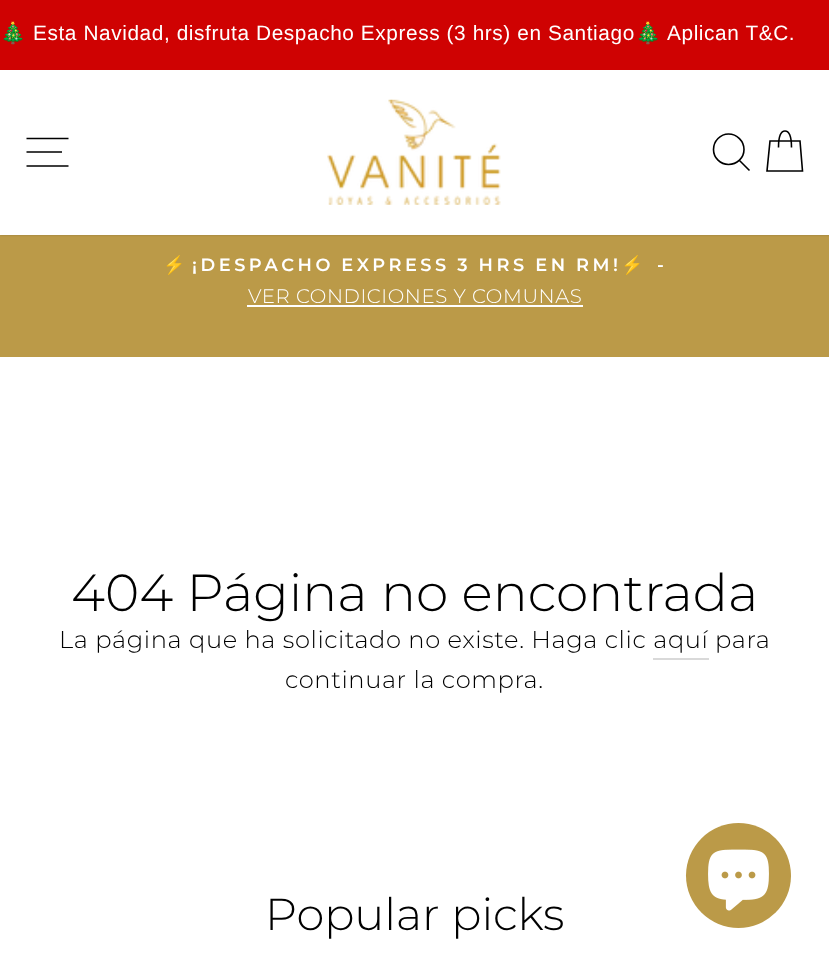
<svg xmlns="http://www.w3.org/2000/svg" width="829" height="963">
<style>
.a{font:20.8px Noto Color Emoji;letter-spacing:0.6px;fill:#fff}
.b{font:20.8px Liberation Sans;letter-spacing:0.6px;fill:#fff}
.c{font:bold 17.75px Noto Color Emoji;letter-spacing:3.55px;fill:#fff}
.d{font:600 17.75px Montserrat;letter-spacing:3.55px;fill:#fff}
.e{font:300 19.7px Montserrat;letter-spacing:0.6px;fill:#fff}
.f{font:300 52px Montserrat;fill:#000}
.g{font:300 24.15px Montserrat;letter-spacing:0.6px;fill:#000}
.h{font:300 44.75px Montserrat;fill:#000}
</style>
<rect width="100%" height="100%" fill="#fff"/>
<path fill="#bb9a48" d="M0 235h829v122H0z"/>
<path fill="#00000033" filter="blur(1px)" d="M0 70h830v165H0z"/>
<path fill="#cf0202" d="M0 0h829v70H0z"/>
<path fill="#fff" d="M0 70h829v165H0z"/>
<path fill="none" stroke="#000" stroke-width="1.6" d="M26.5 138.5h42m-42 13.5h35.5m-35.5 14h42"/>
<image href="1.png" x="327" y="99" width="174" height="106"/>
<path fill="none" stroke="#000" stroke-width="1.6" d="M744 149.5c0 8.5-7 15-15.5 15c-8 0-15-6.5-15-15c0-8.5 7-15.5 15-15.5c8.5 0 15.5 7 15.5 15.5zm5.5 21l-10-10"/>
<path fill="none" stroke="#000" stroke-width="1.6" d="M778.5 147.5c0-13 2.5-16.5 6.5-16.5c3.5 0 6.5 3.5 6.5 16.5m-21.5-6.5h30l2.5 30h-35.5z"/>
<path fill="#fff" d="M247 305h336v2H247z"/>
<path fill="#d9d9d9" d="M653 658h56v2H653z"/>
<circle fill="#bb9a48" cx="738.5" cy="875.5" r="52.5"/>
<image href="2.png" x="708" y="849" width="61" height="62"/>
<text class="a" x="0" y="40">🎄</text>
<text class="b" x="33" y="40">Esta Navidad, disfruta Despacho Express (3 hrs) en Santiago</text>
<text class="a" x="635" y="40">🎄</text>
<text class="b" x="667" y="40">Aplican T&amp;C.</text>
<text class="c" x="163" y="271">⚡️</text>
<text class="d" x="192" y="271" word-spacing="-1">¡DESPACHO EXPRESS 3 HRS EN RM!</text>
<text class="c" x="621" y="271">⚡️</text>
<text class="d" x="657" y="271">-</text>
<text class="e" x="248" y="303">VER CONDICIONES Y COMUNAS</text>
<text class="f" x="71" y="611">404 Página no encontrada</text>
<text class="g" x="59" y="648">La página que ha solicitado no existe. Haga clic aquí</text>
<text class="g" x="715" y="648">para</text>
<text class="g" x="285" y="688">continuar la compra.</text>
<text class="h" x="265" y="930">Popular picks</text>
</svg>
